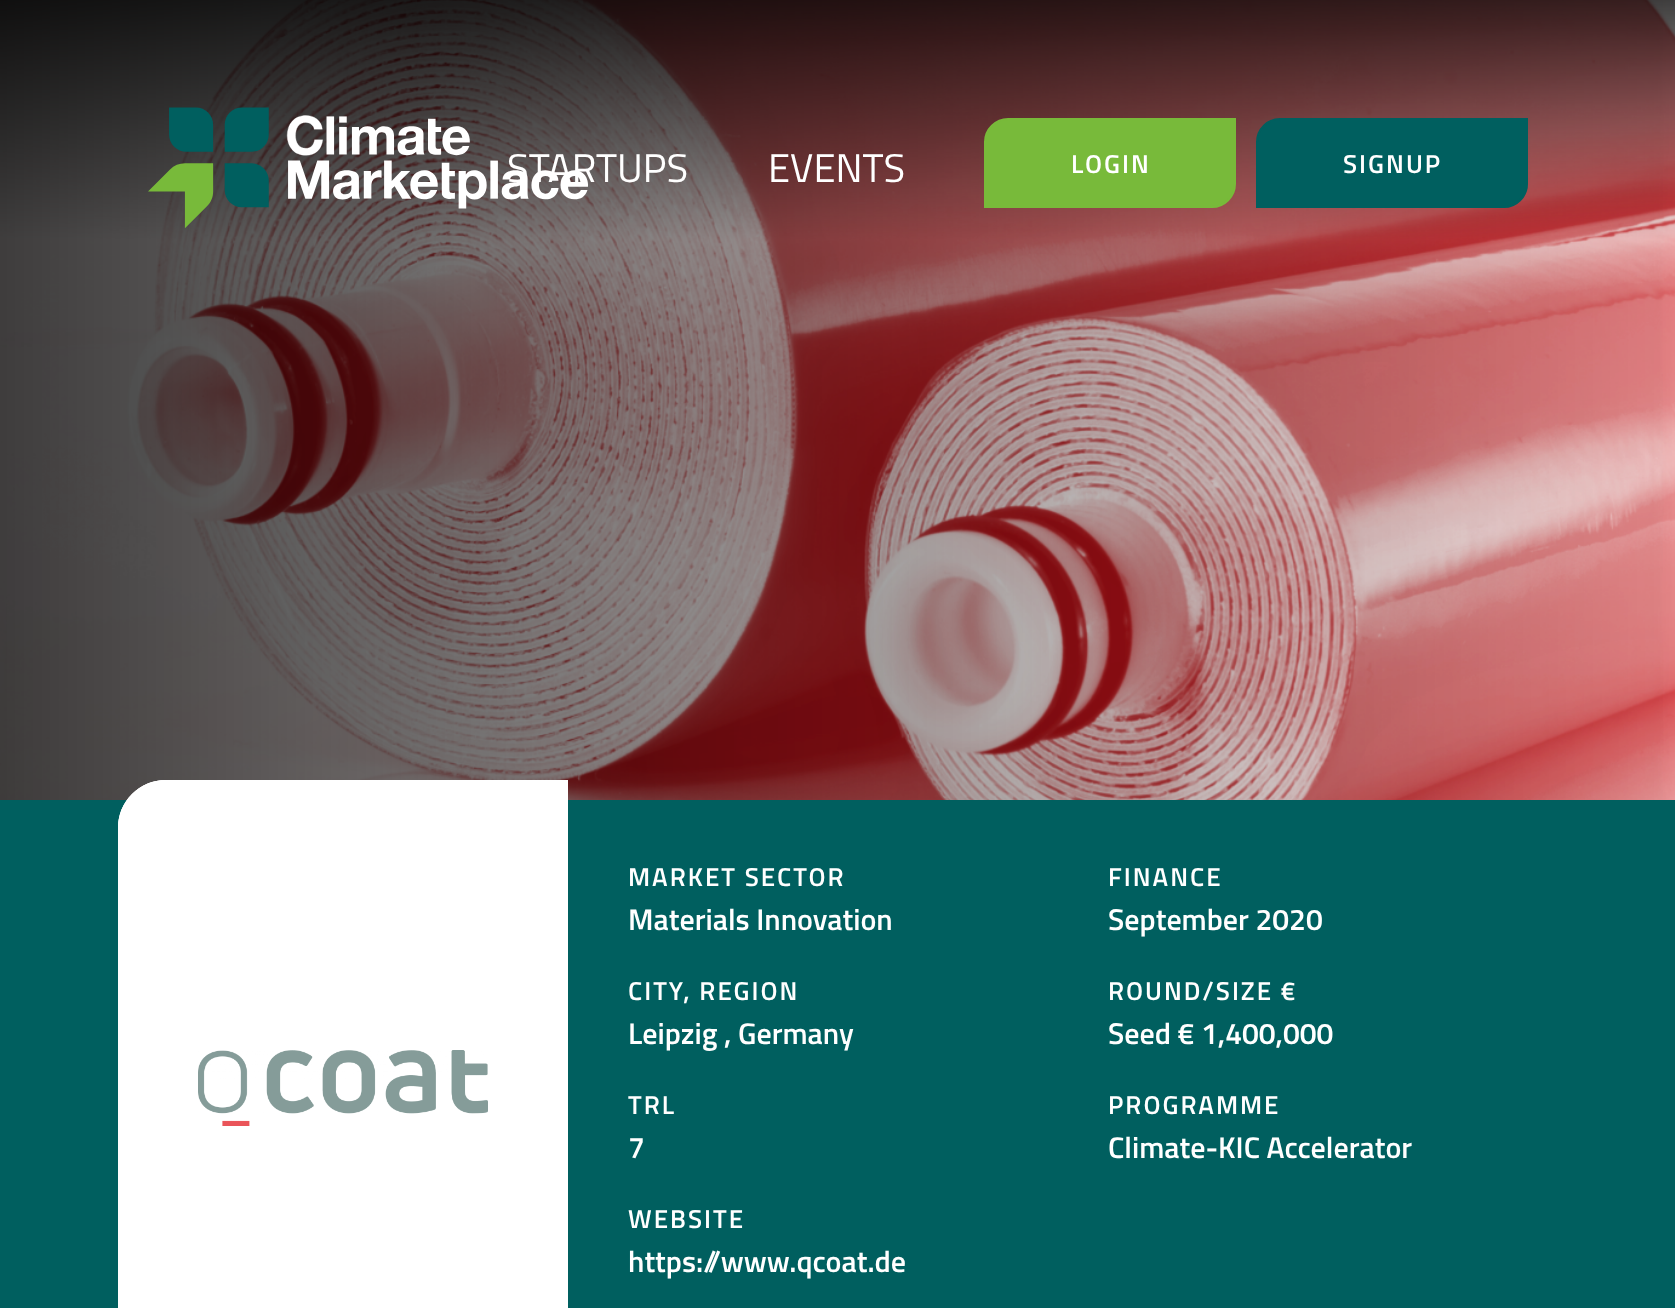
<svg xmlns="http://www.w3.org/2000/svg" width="1675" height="1308">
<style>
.a{font:40px Titillium Web;fill:#fff}
.b{font:600 26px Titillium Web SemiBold;letter-spacing:2px;fill:#fff}
.c{font:600 30px Titillium Web SemiBold;fill:#fff}
</style>
<rect width="100%" height="100%" fill="#005f5f"/>
<image href="2.png" x="0" y="0" width="1675" height="800"/>
<image href="1.png" x="148" y="107" width="440" height="121"/>
<path fill="#78ba3a" stroke="#78ba3a" stroke-width="2" d="M1008 119h227v65c0 12.5-10.5 23-23 23h-227v-65c0-12.5 10.5-23 23-23z"/>
<path fill="#005f5f" stroke="#005f5f" stroke-width="2" d="M1280 119h247v65c0 12.5-10.5 23-23 23h-247v-65c0-12.5 10.5-23 23-23z"/>
<path fill="#fff" d="M166 780h402v528c0 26.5-21.5 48-48 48h-402v-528c0-26.5 21.5-48 48-48z"/>
<image href="3.png" x="118" y="780" width="370" height="346"/>
<path fill="none" stroke="#fff" stroke-width="80" d="M166 820h362v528c0 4.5-3.5 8-8 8h-362v-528c0-4.5 3.5-8 8-8z"/>
<text class="a" x="507" y="182">STARTUPS</text>
<text class="a" x="768" y="182">EVENTS</text>
<text class="b" x="1071" y="173">LOGIN</text>
<text class="b" x="1343" y="173">SIGNUP</text>
<text class="b" x="628" y="886">MARKET SECTOR</text>
<text class="c" x="628" y="930">Materials Innovation</text>
<text class="b" x="628" y="1000">CITY, REGION</text>
<text class="c" x="628" y="1044">Leipzig , Germany</text>
<text class="b" x="1108" y="886">FINANCE</text>
<text class="c" x="1108" y="930">September 2020</text>
<text class="b" x="1108" y="1000">ROUND/SIZE €</text>
<text class="c" x="1108" y="1044">Seed € 1,400,000</text>
<text class="b" x="628" y="1114">TRL</text>
<text class="c" x="628" y="1158">7</text>
<text class="b" x="628" y="1228">WEBSITE</text>
<text class="c" x="628" y="1272">https://www.qcoat.de</text>
<text class="b" x="1108" y="1114">PROGRAMME</text>
<text class="c" x="1108" y="1158">Climate-KIC Accelerator</text>
</svg>
